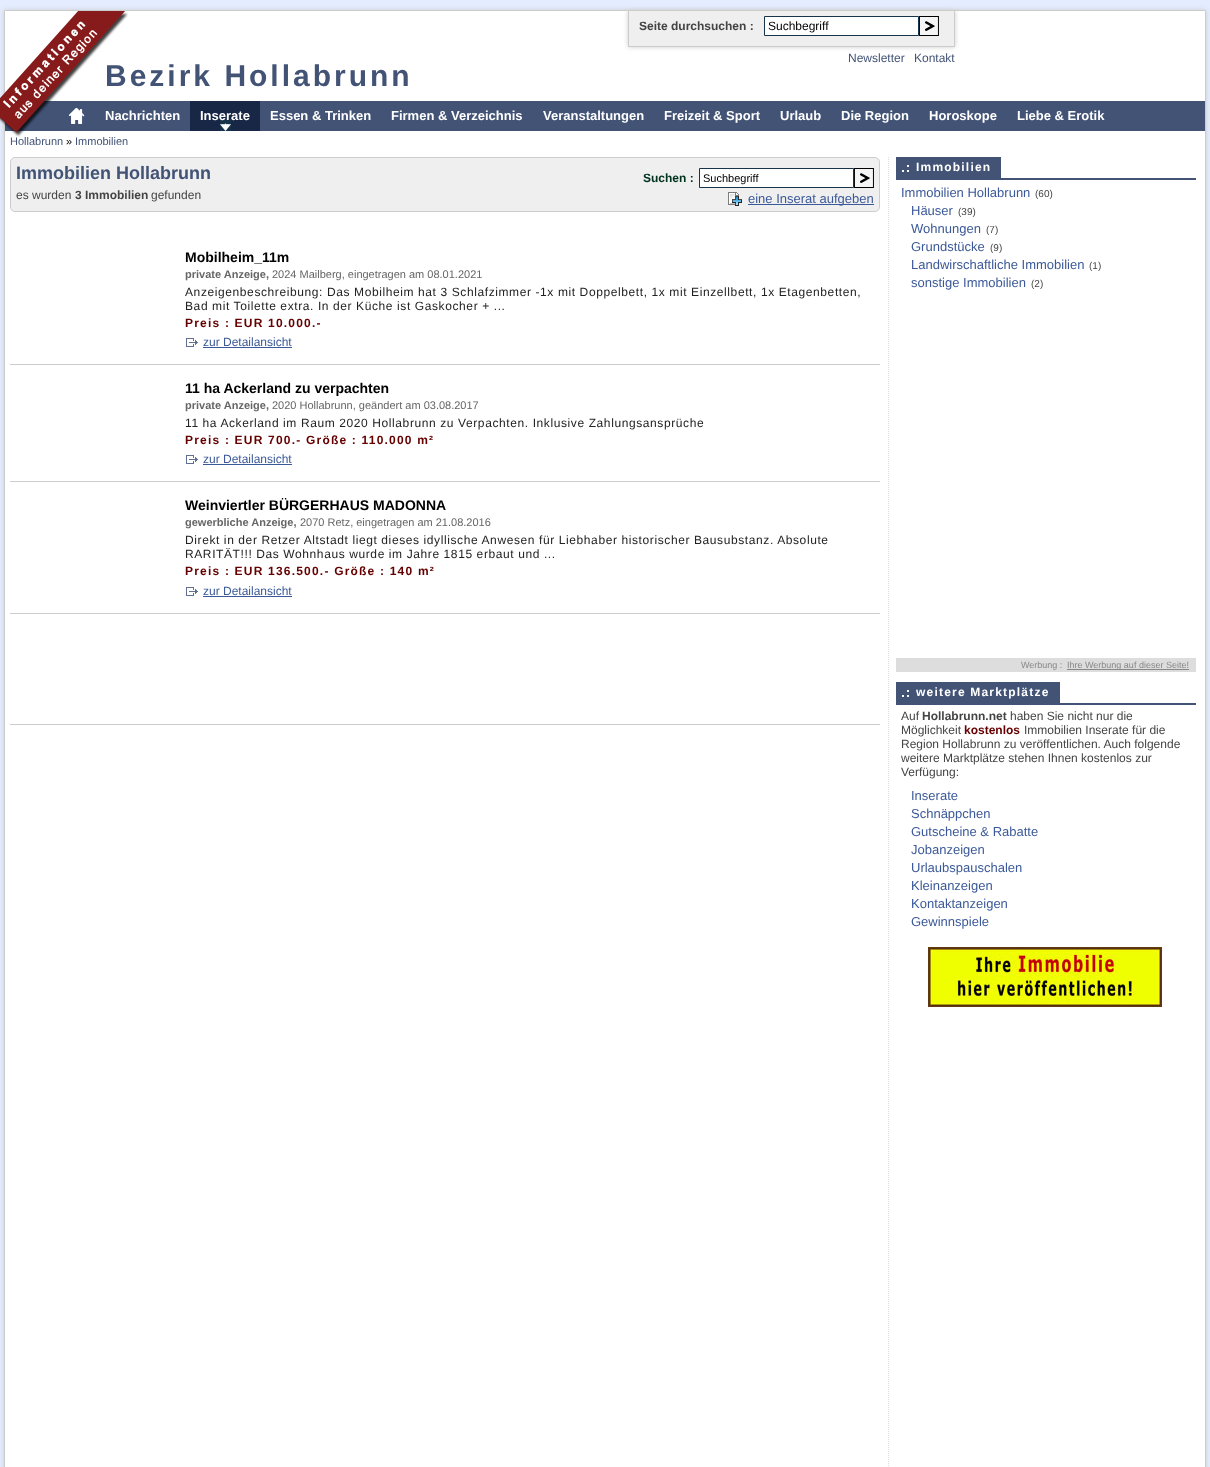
<svg xmlns="http://www.w3.org/2000/svg" width="1210" height="1467">
<style>
.a{font:bold 12px Liberation Sans;fill:#444}
.b{font:12px Liberation Sans;fill:#000}
.c{font:12px Liberation Sans;fill:#425376}
.d{font:bold 30px Liberation Sans;letter-spacing:3px;fill:#425376}
.e{font:bold 13px Liberation Sans;fill:#fff}
.f{font:11px Liberation Sans;fill:#425376}
.g{font:11px Liberation Sans;fill:#000}
.h{font:bold 18px Liberation Sans;fill:#425376}
.i{font:12px Liberation Sans;fill:#444}
.j{font:bold 12px Liberation Sans;fill:#003320}
.k{font:13px Liberation Sans;fill:#3b5998}
.l{font:bold 14px Liberation Sans;fill:#000}
.m{font:bold 11px Liberation Sans;fill:#666}
.n{font:11px Liberation Sans;fill:#666}
.o{font:12px Liberation Sans;letter-spacing:0.6px;fill:#222}
.p{font:bold 12px Liberation Sans;letter-spacing:1.2px;fill:#650000}
.q{font:12px Liberation Sans;fill:#3b5998}
.r{font:bold 12px Liberation Sans;letter-spacing:1.2px;fill:#fff}
.s{font:10px Liberation Sans;fill:#444}
.t{font:9px Liberation Sans;fill:#888}
.u{font:bold 12px Liberation Sans;fill:#650000}
</style>
<rect width="100%" height="100%" fill="#e4edff"/>
<path fill="#ccc" filter="blur(2.5px)" d="M4 10h1202v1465H4z"/>
<path fill="#fff" stroke="#ccc" d="M4.5 10.5h1201v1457H4.5z"/>
<path fill="#ccc" filter="blur(2.5px)" d="M628 11h327v36H628z"/>
<path fill="#efefef" d="M629 11h325v35H629z"/>
<path fill="#ccc" d="M954 11h1v36H954z"/>
<path fill="#ccc" d="M628 46h327v1H628z"/>
<path fill="#ccc" d="M628 11h1v36H628z"/>
<path fill="#fff" stroke="#16344b" d="M764.5 16.5h154v19H764.5z"/>
<image href="2.png" x="919" y="16" width="20" height="20"/>
<path fill="#425376" d="M5 101h1200v30H5z"/>
<image href="3.png" x="69" y="108" width="16" height="16"/>
<path fill="#182745" d="M190 101h70v30H190z"/>
<image href="4.png" x="220" y="120" width="11" height="11"/>
<rect fill="#efefef" stroke="#ccc" x="10.5" y="157.5" width="869" height="54" rx="4.5"/>
<path fill="#fff" stroke="#16344b" d="M699.5 168.5h154v19H699.5z"/>
<image href="2.png" x="854" y="168" width="20" height="20"/>
<image href="5.png" x="728" y="192" width="14" height="14"/>
<path fill="#3b5998" d="M748 204h126v1H748z"/>
<path fill="#ccc" d="M10 364h870v1H10z"/>
<image href="6.png" x="186" y="338" width="12" height="9"/>
<path fill="#3b5998" d="M203 347h89v1H203z"/>
<path fill="#ccc" d="M10 481h870v1H10z"/>
<image href="6.png" x="186" y="455" width="12" height="9"/>
<path fill="#3b5998" d="M203 464h89v1H203z"/>
<path fill="#ccc" d="M10 613h870v1H10z"/>
<image href="6.png" x="186" y="587" width="12" height="9"/>
<path fill="#3b5998" d="M203 596h89v1H203z"/>
<path fill="#ccc" d="M10 724h870v1H10z"/>
<path fill="none" stroke="#ddd" stroke-dasharray="1 1" d="M888.5 157v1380"/>
<path fill="#425376" d="M1001 178h195v2H1001z"/>
<path fill="#425376" d="M896 157h105v23H896z"/>
<image href="7.png" x="902" y="165" width="7" height="7"/>
<path fill="#ddd" d="M896 658h300v14H896z"/>
<path fill="#888" d="M1067 669h122v1H1067z"/>
<path fill="#425376" d="M1060 703h136v2H1060z"/>
<path fill="#425376" d="M896 682h164v23H896z"/>
<image href="7.png" x="902" y="690" width="7" height="7"/>
<image href="8.png" x="928" y="947" width="234" height="60"/>
<text class="a" x="639" y="30">Seite durchsuchen :</text>
<text class="b" x="768" y="30">Suchbegriff</text>
<text class="c" x="848" y="62">Newsletter</text>
<text class="c" x="914" y="62">Kontakt</text>
<text class="d" x="105" y="86">Bezirk Hollabrunn</text>
<text class="e" x="105" y="120">Nachrichten</text>
<image href="1.png" x="0" y="11" width="128" height="126"/>
<text class="e" x="200" y="120">Inserate</text>
<text class="e" x="270" y="120">Essen &amp; Trinken</text>
<text class="e" x="391" y="120">Firmen &amp; Verzeichnis</text>
<text class="e" x="543" y="120">Veranstaltungen</text>
<text class="e" x="664" y="120">Freizeit &amp; Sport</text>
<text class="e" x="780" y="120">Urlaub</text>
<text class="e" x="841" y="120">Die Region</text>
<text class="e" x="929" y="120">Horoskope</text>
<text class="e" x="1017" y="120">Liebe &amp; Erotik</text>
<text class="f" x="10" y="145">Hollabrunn</text>
<text class="g" x="66" y="145">»</text>
<text class="f" x="75" y="145">Immobilien</text>
<text class="h" x="16" y="179">Immobilien Hollabrunn</text>
<text class="i" x="16" y="199">es wurden</text>
<text class="a" x="75" y="199">3 Immobilien</text>
<text class="i" x="151" y="199">gefunden</text>
<text class="j" x="643" y="182">Suchen :</text>
<text class="g" x="703" y="182">Suchbegriff</text>
<text class="k" x="748" y="203">eine Inserat aufgeben</text>
<text class="l" x="185" y="262">Mobilheim_11m</text>
<text class="m" x="185" y="278">private Anzeige,</text>
<text class="n" x="272" y="278">2024 Mailberg, eingetragen am 08.01.2021</text>
<text class="o" x="185" y="296">Anzeigenbeschreibung: Das Mobilheim hat 3 Schlafzimmer -1x mit Doppelbett, 1x mit Einzellbett, 1x Etagenbetten,</text>
<text class="o" x="185" y="310">Bad mit Toilette extra. In der Küche ist Gaskocher + ...</text>
<text class="p" x="185" y="327">Preis : EUR 10.000.-</text>
<text class="q" x="203" y="346">zur Detailansicht</text>
<text class="l" x="185" y="393">11 ha Ackerland zu verpachten</text>
<text class="m" x="185" y="409">private Anzeige,</text>
<text class="n" x="272" y="409">2020 Hollabrunn, geändert am 03.08.2017</text>
<text class="o" x="185" y="427">11 ha Ackerland im Raum 2020 Hollabrunn zu Verpachten. Inklusive Zahlungsansprüche</text>
<text class="p" x="185" y="444">Preis : EUR 700.- Größe : 110.000 m²</text>
<text class="q" x="203" y="463">zur Detailansicht</text>
<text class="l" x="185" y="510">Weinviertler BÜRGERHAUS MADONNA</text>
<text class="m" x="185" y="526">gewerbliche Anzeige,</text>
<text class="n" x="300" y="526">2070 Retz, eingetragen am 21.08.2016</text>
<text class="o" x="185" y="544">Direkt in der Retzer Altstadt liegt dieses idyllische Anwesen für Liebhaber historischer Bausubstanz. Absolute</text>
<text class="o" x="185" y="558">RARITÄT!!! Das Wohnhaus wurde im Jahre 1815 erbaut und ...</text>
<text class="p" x="185" y="575">Preis : EUR 136.500.- Größe : 140 m²</text>
<text class="q" x="203" y="595">zur Detailansicht</text>
<text class="r" x="916" y="171">Immobilien</text>
<text class="k" x="901" y="197">Immobilien Hollabrunn</text>
<text class="s" x="1035" y="197">(60)</text>
<text class="k" x="911" y="215">Häuser</text>
<text class="s" x="958" y="215">(39)</text>
<text class="k" x="911" y="233">Wohnungen</text>
<text class="s" x="986" y="233">(7)</text>
<text class="k" x="911" y="251">Grundstücke</text>
<text class="s" x="990" y="251">(9)</text>
<text class="k" x="911" y="269">Landwirschaftliche Immobilien</text>
<text class="s" x="1089" y="269">(1)</text>
<text class="k" x="911" y="287">sonstige Immobilien</text>
<text class="s" x="1031" y="287">(2)</text>
<text class="t" x="1021" y="668">Werbung :</text>
<text class="t" x="1067" y="668">Ihre Werbung auf dieser Seite!</text>
<text class="r" x="916" y="696">weitere Marktplätze</text>
<text class="i" x="901" y="720">Auf</text>
<text class="a" x="922" y="720">Hollabrunn.net</text>
<text class="i" x="1010" y="720">haben Sie nicht nur die</text>
<text class="i" x="901" y="734">Möglichkeit</text>
<text class="u" x="964" y="734">kostenlos</text>
<text class="i" x="1024" y="734">Immobilien Inserate für die</text>
<text class="i" x="901" y="748">Region Hollabrunn zu veröffentlichen. Auch folgende</text>
<text class="i" x="901" y="762">weitere Marktplätze stehen Ihnen kostenlos zur</text>
<text class="i" x="901" y="776">Verfügung:</text>
<text class="k" x="911" y="800">Inserate</text>
<text class="k" x="911" y="818">Schnäppchen</text>
<text class="k" x="911" y="836">Gutscheine &amp; Rabatte</text>
<text class="k" x="911" y="854">Jobanzeigen</text>
<text class="k" x="911" y="872">Urlaubspauschalen</text>
<text class="k" x="911" y="890">Kleinanzeigen</text>
<text class="k" x="911" y="908">Kontaktanzeigen</text>
<text class="k" x="911" y="926">Gewinnspiele</text>
</svg>
